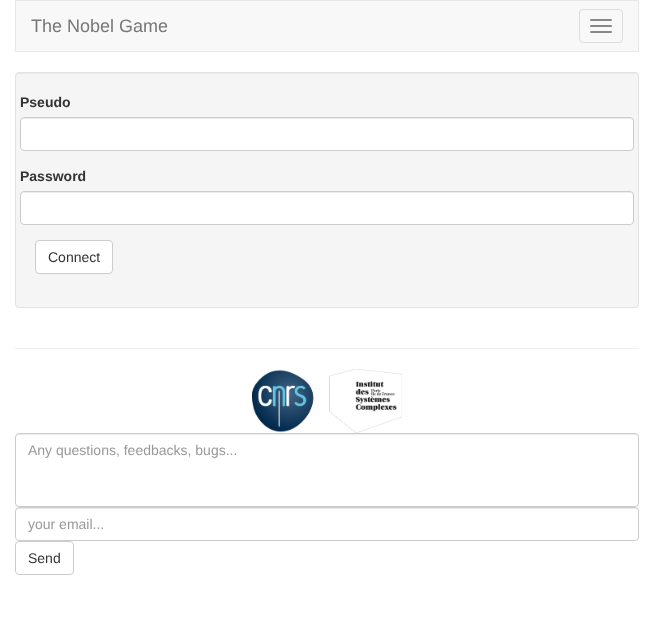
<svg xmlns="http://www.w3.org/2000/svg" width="654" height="626">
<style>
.a{font:18px Liberation Sans;fill:#777}
.b{font:bold 14px Liberation Sans;fill:#333}
.c{font:14px Liberation Sans;fill:#333}
.d{font:14px Liberation Sans;fill:#999}
</style>
<rect width="100%" height="100%" fill="#fff"/>
<path fill="#f8f8f8" stroke="#e7e7e7" d="M15.5 0.5h623v51H15.5z"/>
<rect fill="none" stroke="#ddd" x="579.5" y="9.5" width="43" height="33" rx="3.5"/>
<rect fill="#888" x="590" y="19" width="22" height="2" rx="1"/>
<rect fill="#888" x="590" y="25" width="22" height="2" rx="1"/>
<rect fill="#888" x="590" y="31" width="22" height="2" rx="1"/>
<rect fill="#f5f5f5" x="15" y="72" width="624" height="236" rx="4"/>
<path fill="#e9e9e9" d="M19 74h616c2 0 3 1 3 3v-1c0-2-1-3-3-3h-616c-2 0-3 1-3 3v1c0-2 1-3 3-3z"/>
<rect fill="none" stroke="#e3e3e3" x="15.5" y="72.5" width="623" height="235" rx="3.5"/>
<rect fill="#fff" x="20" y="117" width="614" height="34" rx="4"/>
<path fill="#ececec" d="M24 119h606c2 0 3 1 3 3v-1c0-2-1-3-3-3h-606c-2 0-3 1-3 3v1c0-2 1-3 3-3z"/>
<rect fill="none" stroke="#ccc" x="20.5" y="117.5" width="613" height="33" rx="3.5"/>
<rect fill="#fff" x="20" y="191" width="614" height="34" rx="4"/>
<path fill="#ececec" d="M24 193h606c2 0 3 1 3 3v-1c0-2-1-3-3-3h-606c-2 0-3 1-3 3v1c0-2 1-3 3-3z"/>
<rect fill="none" stroke="#ccc" x="20.5" y="191.5" width="613" height="33" rx="3.5"/>
<rect fill="#fff" stroke="#ccc" x="35.5" y="240.5" width="77" height="33" rx="3.5"/>
<path fill="#eee" d="M15 348h624v1H15z"/>
<image href="1.png" x="252" y="369" width="150" height="64"/>
<path fill="#ececec" d="M19 435h616c2 0 3 1 3 3v-1c0-2-1-3-3-3h-616c-2 0-3 1-3 3v1c0-2 1-3 3-3z"/>
<rect fill="none" stroke="#ccc" x="15.5" y="433.5" width="623" height="73" rx="3.5"/>
<path fill="#ececec" d="M19 509h616c2 0 3 1 3 3v-1c0-2-1-3-3-3h-616c-2 0-3 1-3 3v1c0-2 1-3 3-3z"/>
<rect fill="none" stroke="#ccc" x="15.5" y="507.5" width="623" height="33" rx="3.5"/>
<rect fill="none" stroke="#ccc" x="15.5" y="541.5" width="58" height="33" rx="3.5"/>
<text class="a" x="31" y="32">The Nobel Game</text>
<text class="b" x="20" y="107">Pseudo</text>
<text class="b" x="20" y="181">Password</text>
<text class="c" x="48" y="262">Connect</text>
<text class="d" x="28" y="455">Any questions, feedbacks, bugs...</text>
<text class="d" x="28" y="529">your email...</text>
<text class="c" x="28" y="563">Send</text>
</svg>
